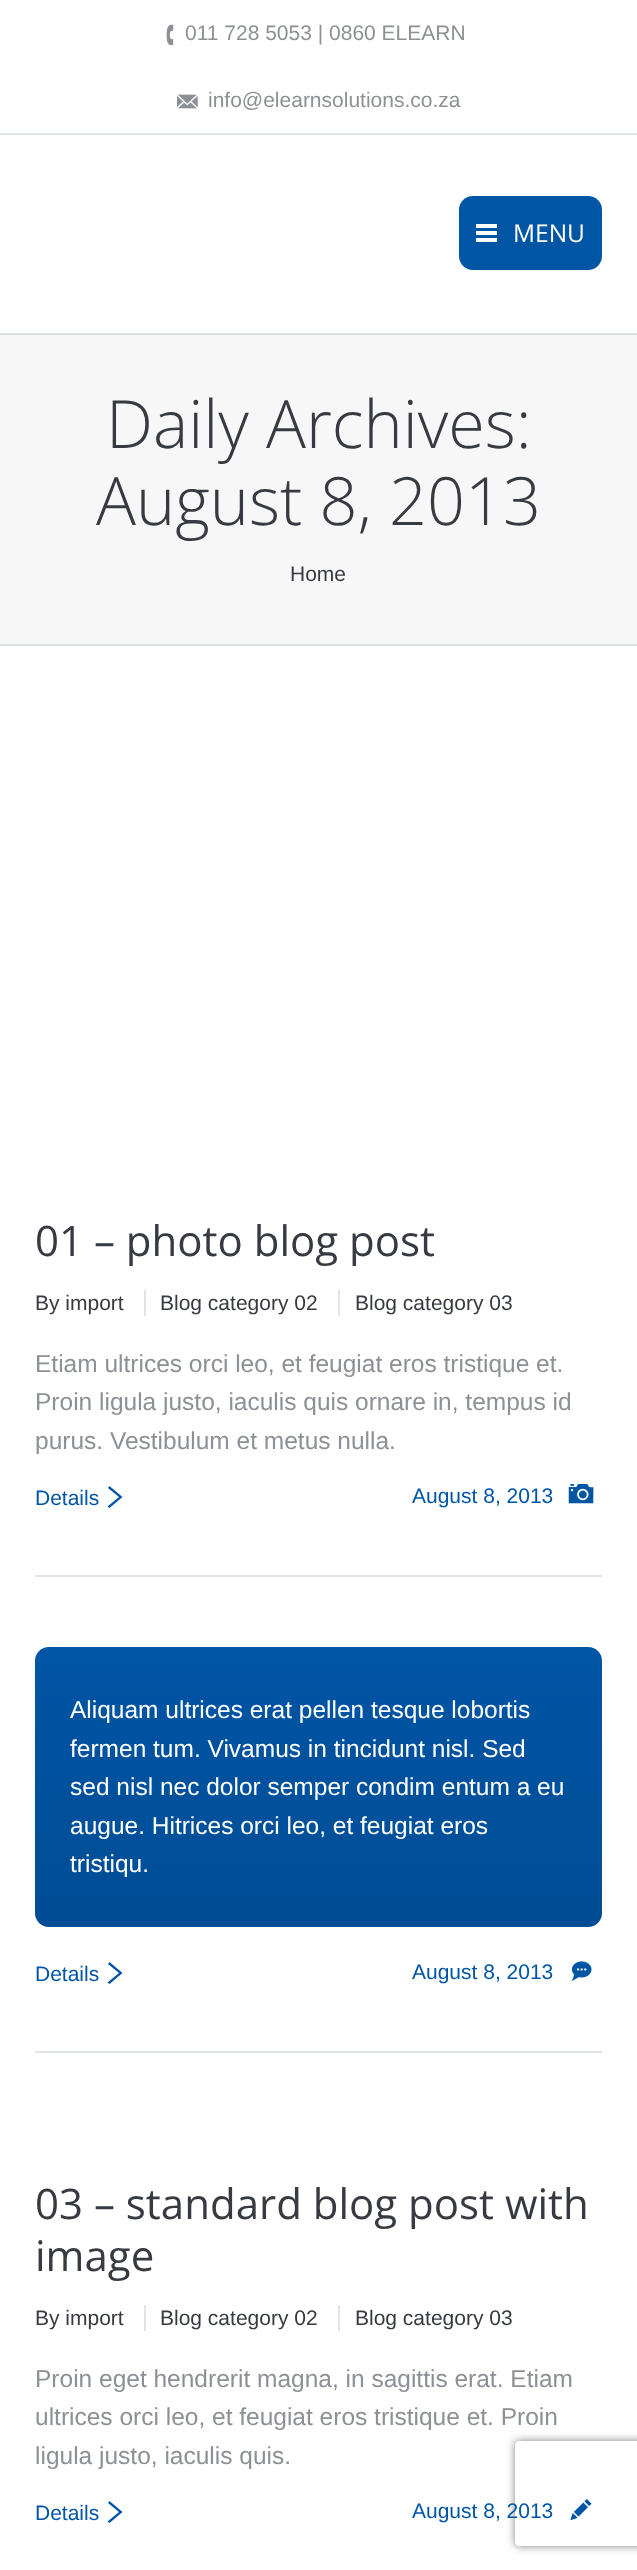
<svg xmlns="http://www.w3.org/2000/svg" width="637" height="2570">
<style>
.a{font:21px Liberation Sans;fill:#8d9095}
.b{font:24.5px Open Sans;fill:#fff}
.c{font:300 66.5px Open Sans;fill:#373a41}
.d{font:21px Liberation Sans;fill:#373a41}
.e{font:42px Open Sans;fill:#373a41}
.f{font:24.5px Liberation Sans;fill:#8d9095}
.g{font:21px Liberation Sans;fill:#0055a5}
.h{font:24.5px Liberation Sans;fill:#fff}
</style>
<defs>
<linearGradient id="g1" gradientUnits="userSpaceOnUse" x1="319" y1="1647" x2="319" y2="1927"><stop offset="0" stop-color="#000" stop-opacity="0"/><stop offset="1" stop-color="#000" stop-opacity="0.1"/></linearGradient>
<clipPath id="clip1"><path d="M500 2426h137v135h-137zm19 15h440c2 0 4 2 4 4v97c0 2-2 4-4 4h-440c-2 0-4-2-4-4v-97c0-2 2-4 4-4z" clip-rule="evenodd"/></clipPath>
</defs>
<rect width="100%" height="100%" fill="#fff"/>
<path fill="#f7f7f7" d="M0 335h637v309H0z"/>
<image href="1.png" x="166" y="24" width="8" height="22"/>
<image href="2.png" x="177" y="94" width="21" height="15"/>
<path fill="#e1e5e7" d="M0 133h637v2H0z"/>
<path fill="#e1e5e7" d="M0 333h637v1H0z"/>
<path fill="#dadee0" d="M0 334h637v1H0z"/>
<rect fill="#0055a5" x="459" y="196" width="143" height="74" rx="14"/>
<path fill="#fff" d="M476 238h21v4H476z"/>
<path fill="#fff" d="M476 231h21v4H476z"/>
<path fill="#fff" d="M476 224h21v4H476z"/>
<path fill="#e0e3e5" d="M0 644h637v2H0z"/>
<path fill="#e1e5e7" d="M35 1575h567v2H35z"/>
<path fill="#e1e5e7" d="M144 1290h2v26H144z"/>
<path fill="#e1e5e7" d="M338 1290h2v26H338z"/>
<path fill="#0055a5" d="M109.5 1486l13 11l-13 11l-2-1.5l11.5-9.5l-11-9z"/>
<image href="3.png" x="568" y="1484" width="26" height="20"/>
<path fill="#e1e5e7" d="M35 2051h567v2H35z"/>
<rect fill="#0055a5" x="35" y="1647" width="567" height="280" rx="14"/>
<rect fill="url(#g1)" x="35" y="1647" width="567" height="280" rx="14"/>
<path fill="#0055a5" d="M109.5 1962l13 11l-13 11l-2-1.5l11.5-9.5l-11-9z"/>
<image href="4.png" x="571" y="1961" width="21" height="20"/>
<path fill="#e1e5e7" d="M144 2305h2v26H144z"/>
<path fill="#e1e5e7" d="M338 2305h2v26H338z"/>
<path fill="#0055a5" d="M109.5 2501l13 11l-13 11l-2-1.5l11.5-9.5l-11-9z"/>
<image href="5.png" x="570" y="2499" width="22" height="22"/>
<g clip-path="url(#clip1)">
<rect fill="#808080" filter="blur(4.5px)" x="515" y="2441" width="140" height="105" rx="4"/>
</g>
<text class="a" x="185" y="40">011 728 5053 | 0860 ELEARN</text>
<text class="a" x="208" y="107">info@elearnsolutions.co.za</text>
<text class="b" x="513" y="242">MENU</text>
<text class="c" x="106" y="448">Daily Archives:</text>
<text class="c" x="96" y="525">August 8, 2013</text>
<text class="d" x="290" y="581">Home</text>
<text class="e" x="35" y="1256">01 – photo blog post</text>
<text class="d" x="35" y="1310">By import</text>
<text class="d" x="160" y="1310">Blog category 02</text>
<text class="d" x="355" y="1310">Blog category 03</text>
<text class="f" x="35" y="1372">Etiam ultrices orci leo, et feugiat eros tristique et.</text>
<text class="f" x="35" y="1410">Proin ligula justo, iaculis quis ornare in, tempus id</text>
<text class="f" x="35" y="1449">purus. Vestibulum et metus nulla.</text>
<text class="g" x="35" y="1505">Details</text>
<text class="g" x="412" y="1503">August 8, 2013</text>
<text class="h" x="70" y="1718">Aliquam ultrices erat pellen tesque lobortis</text>
<text class="h" x="70" y="1757">fermen tum. Vivamus in tincidunt nisl. Sed</text>
<text class="h" x="70" y="1795">sed nisl nec dolor semper condim entum a eu</text>
<text class="h" x="70" y="1834">augue. Hitrices orci leo, et feugiat eros</text>
<text class="h" x="70" y="1872">tristiqu.</text>
<text class="g" x="35" y="1981">Details</text>
<text class="g" x="412" y="1979">August 8, 2013</text>
<text class="e" x="35" y="2219">03 – standard blog post with</text>
<text class="e" x="35" y="2271">image</text>
<text class="d" x="35" y="2325">By import</text>
<text class="d" x="160" y="2325">Blog category 02</text>
<text class="d" x="355" y="2325">Blog category 03</text>
<text class="f" x="35" y="2387">Proin eget hendrerit magna, in sagittis erat. Etiam</text>
<text class="f" x="35" y="2425">ultrices orci leo, et feugiat eros tristique et. Proin</text>
<text class="f" x="35" y="2464">ligula justo, iaculis quis.</text>
<text class="g" x="35" y="2520">Details</text>
<text class="g" x="412" y="2518">August 8, 2013</text>
</svg>
